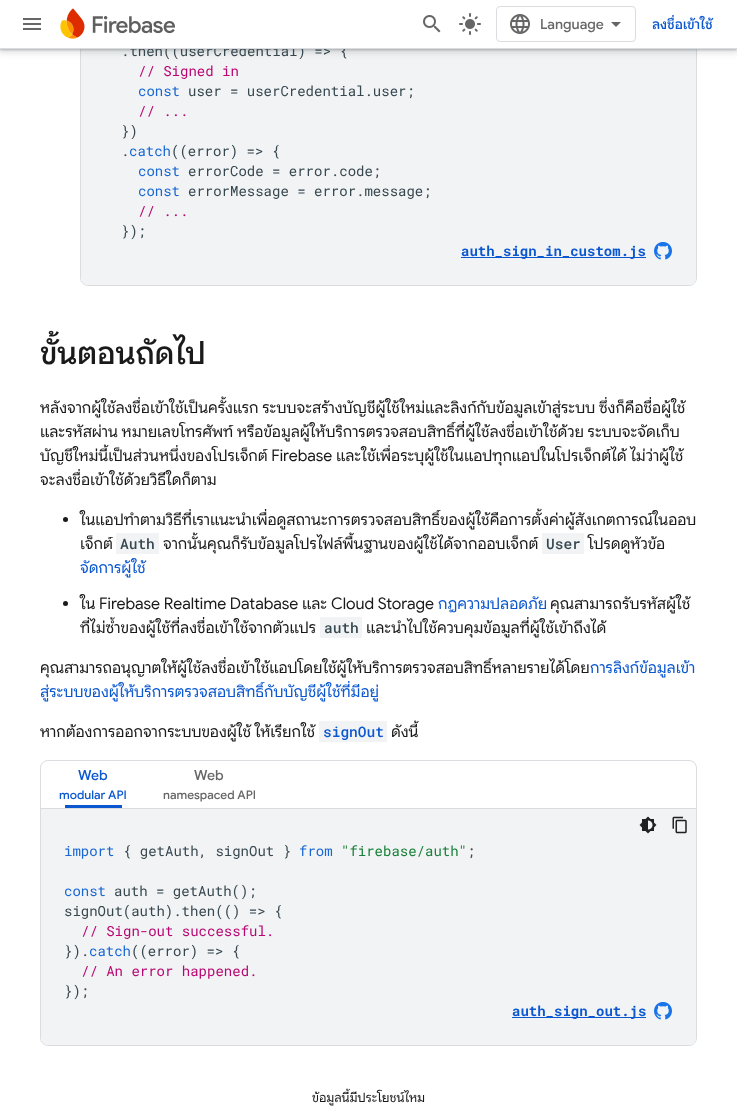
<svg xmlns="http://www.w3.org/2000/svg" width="737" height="1106">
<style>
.a{font:14px Roboto Mono;fill:#37474f}
.b{font:500 14px Google Sans;fill:#666}
.c{font:500 14px Google Sans;fill:#0b57d0}
.d{font:14px Roboto Mono;fill:#b80672}
.e{font:14px Roboto Mono;fill:#1967d2}
.f{font:bold 14px Roboto Mono;fill:#0b57d0}
.g{font:500 32px Google Sans;fill:#1a1a1a}
.h{font:16px Google Sans;fill:#1a1a1a}
.i{font:500 14.5px Roboto Mono;fill:#37474f}
.j{font:16px Google Sans;fill:#0b57d0}
.k{font:500 14.5px Roboto Mono;fill:#0b57d0}
.l{font:500 12px Google Sans;fill:#0b57d0}
.m{font:500 12px Google Sans;fill:#666}
.n{font:14px Roboto Mono;fill:#188038}
.o{font:13px Google Sans;fill:#1a1a1a}
</style>
<defs>
<clipPath id="clip1"><path d="M40 0h657v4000H40z"/></clipPath>
</defs>
<rect width="100%" height="100%" fill="#fff"/>
<rect fill="none" stroke="#dadce0" x="80.5" y="-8.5" width="616" height="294" rx="7.5"/>
<path fill="#f1f3f4" d="M81-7h615v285c0 4-3 7-7 7h-601c-4 0-7-3-7-7z"/>
<path fill="#3c404326" filter="blur(3px)" d="M-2 -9h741v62H-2z"/>
<path fill="#3c40434d" filter="blur(1px)" d="M0 -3h737v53H0z"/>
<path fill="#0b57d0" d="M461 257h185v1H461z"/>
<image href="6.png" x="654" y="242" width="18" height="18"/>
<circle fill="#1a1a1a" cx="65.5" cy="519.5" r="2.5"/>
<path fill="#f1f3f4" d="M116 533h43v21H116z"/>
<path fill="#f1f3f4" d="M542 533h42v21H542z"/>
<circle fill="#1a1a1a" cx="65.5" cy="603.5" r="2.5"/>
<path fill="#f1f3f4" d="M320 617h42v21H320z"/>
<path fill="#f1f3f4" d="M319 721h68v21H319z"/>
<rect fill="none" stroke="#dadce0" x="40.5" y="760.5" width="656" height="285" rx="7.5"/>
<path fill="#dadce0" d="M41 808h655v1H41z"/>
<path fill="#0b57d0" d="M65 805h57v3H65z"/>
<path fill="#f1f3f4" d="M41 809h655v229c0 4-3 7-7 7h-641c-4 0-7-3-7-7z"/>
<image href="7.png" x="639" y="816" width="18" height="18"/>
<image href="8.png" x="672" y="816" width="15" height="18"/>
<path fill="#0b57d0" d="M512 1017h134v1H512z"/>
<image href="6.png" x="654" y="1002" width="18" height="18"/>
<text class="a" x="121" y="56">.then((userCredential) =&gt; {</text>
<path fill="#fff" d="M0 0h737v48H0z"/>
<image href="1.png" x="23" y="18" width="18" height="12"/>
<image href="4.png" x="459" y="13" width="22" height="22"/>
<image href="3.png" x="423" y="15" width="18" height="18"/>
<rect fill="none" stroke="#dadce0" x="496.5" y="6.5" width="139" height="35" rx="3.5"/>
<path fill="#666" d="M616 27l-5-5h10z"/>
<text class="b" x="540" y="29">Language</text>
<image href="5.png" x="510" y="14" width="20" height="20"/>
<text class="c" x="652" y="29">ลงชื่อเข้าใช้</text>
<image href="2.png" x="60" y="8" width="115" height="31"/>
<path fill="#dadce0" d="M0 48h737v1H0z"/>
<text class="d" x="138" y="76">// Signed in</text>
<text class="e" x="138" y="96">const</text>
<text class="a" x="188" y="96">user = userCredential.user;</text>
<text class="d" x="138" y="116">// ...</text>
<text class="a" x="121" y="136">})</text>
<text class="a" x="121" y="156">.</text>
<text class="e" x="129" y="156">catch</text>
<text class="a" x="171" y="156">((error) =&gt; {</text>
<text class="e" x="138" y="176">const</text>
<text class="a" x="188" y="176">errorCode = error.code;</text>
<text class="e" x="138" y="196">const</text>
<text class="a" x="188" y="196">errorMessage = error.message;</text>
<text class="d" x="138" y="216">// ...</text>
<text class="a" x="121" y="236">});</text>
<text class="f" x="461" y="256">auth_sign_in_custom.js</text>
<g clip-path="url(#clip1)">
<text class="g" x="40" y="364">ขั้นตอนถัดไป</text>
</g>
<text class="h" x="40" y="413">หลังจากผู้ใช้ลงชื่อเข้าใช้เป็นครั้งแรก ระบบจะสร้างบัญชีผู้ใช้ใหม่และลิงก์กับข้อมูลเข้าสู่ระบบ ซึ่งก็คือชื่อผู้ใช้</text>
<text class="h" x="40" y="437">และรหัสผ่าน หมายเลขโทรศัพท์ หรือข้อมูลผู้ให้บริการตรวจสอบสิทธิ์ที่ผู้ใช้ลงชื่อเข้าใช้ด้วย ระบบจะจัดเก็บ</text>
<text class="h" x="40" y="461">บัญชีใหม่นี้เป็นส่วนหนึ่งของโปรเจ็กต์ Firebase และใช้เพื่อระบุผู้ใช้ในแอปทุกแอปในโปรเจ็กต์ได้ ไม่ว่าผู้ใช้</text>
<text class="h" x="40" y="485">จะลงชื่อเข้าใช้ด้วยวิธีใดก็ตาม</text>
<text class="h" x="80" y="525">ในแอปทําตามวิธีที่เราแนะนําเพื่อดูสถานะการตรวจสอบสิทธิ์ของผู้ใช้คือการตั้งค่าผู้สังเกตการณ์ในออบ</text>
<text class="h" x="80" y="549">เจ็กต์</text>
<text class="i" x="120" y="549">Auth</text>
<text class="h" x="163" y="549">จากนั้นคุณก็รับข้อมูลโปรไฟล์พื้นฐานของผู้ใช้ได้จากออบเจ็กต์</text>
<text class="i" x="546" y="549">User</text>
<text class="h" x="588" y="549">โปรดดูหัวข้อ</text>
<text class="j" x="80" y="573">จัดการผู้ใช้</text>
<text class="h" x="80" y="609">ใน Firebase Realtime Database และ Cloud Storage</text>
<text class="j" x="438" y="609">กฎความปลอดภัย</text>
<text class="h" x="550" y="609">คุณสามารถรับรหัสผู้ใช้</text>
<text class="h" x="80" y="633">ที่ไม่ซ้ำของผู้ใช้ที่ลงชื่อเข้าใช้จากตัวแปร</text>
<text class="i" x="324" y="633">auth</text>
<text class="h" x="366" y="633">และนำไปใช้ควบคุมข้อมูลที่ผู้ใช้เข้าถึงได้</text>
<text class="h" x="40" y="673">คุณสามารถอนุญาตให้ผู้ใช้ลงชื่อเข้าใช้แอปโดยใช้ผู้ให้บริการตรวจสอบสิทธิ์หลายรายได้โดย</text>
<text class="j" x="590" y="673">การลิงก์ข้อมูลเข้า</text>
<text class="j" x="40" y="697">สู่ระบบของผู้ให้บริการตรวจสอบสิทธิ์กับบัญชีผู้ใช้ที่มีอยู่</text>
<text class="h" x="40" y="737">หากต้องการออกจากระบบของผู้ใช้ ให้เรียกใช้</text>
<text class="k" x="323" y="737">signOut</text>
<text class="h" x="391" y="737">ดังนี้</text>
<text class="c" x="78" y="780">Web</text>
<text class="l" x="59" y="799">modular API</text>
<text class="b" x="194" y="780">Web</text>
<text class="m" x="163" y="799">namespaced API</text>
<text class="e" x="64" y="856">import</text>
<text class="a" x="123" y="856">{ getAuth, signOut }</text>
<text class="e" x="299" y="856">from</text>
<text class="n" x="341" y="856">"firebase/auth"</text>
<text class="a" x="467" y="856">;</text>
<text class="e" x="64" y="896">const</text>
<text class="a" x="114" y="896">auth = getAuth();</text>
<text class="a" x="64" y="916">signOut(auth).then(() =&gt; {</text>
<text class="d" x="81" y="936">// Sign-out successful.</text>
<text class="a" x="64" y="956">}).</text>
<text class="e" x="89" y="956">catch</text>
<text class="a" x="131" y="956">((error) =&gt; {</text>
<text class="d" x="81" y="976">// An error happened.</text>
<text class="a" x="64" y="996">});</text>
<text class="f" x="512" y="1016">auth_sign_out.js</text>
<text class="o" x="312" y="1102">ข้อมูลนี้มีประโยชน์ไหม</text>
</svg>
